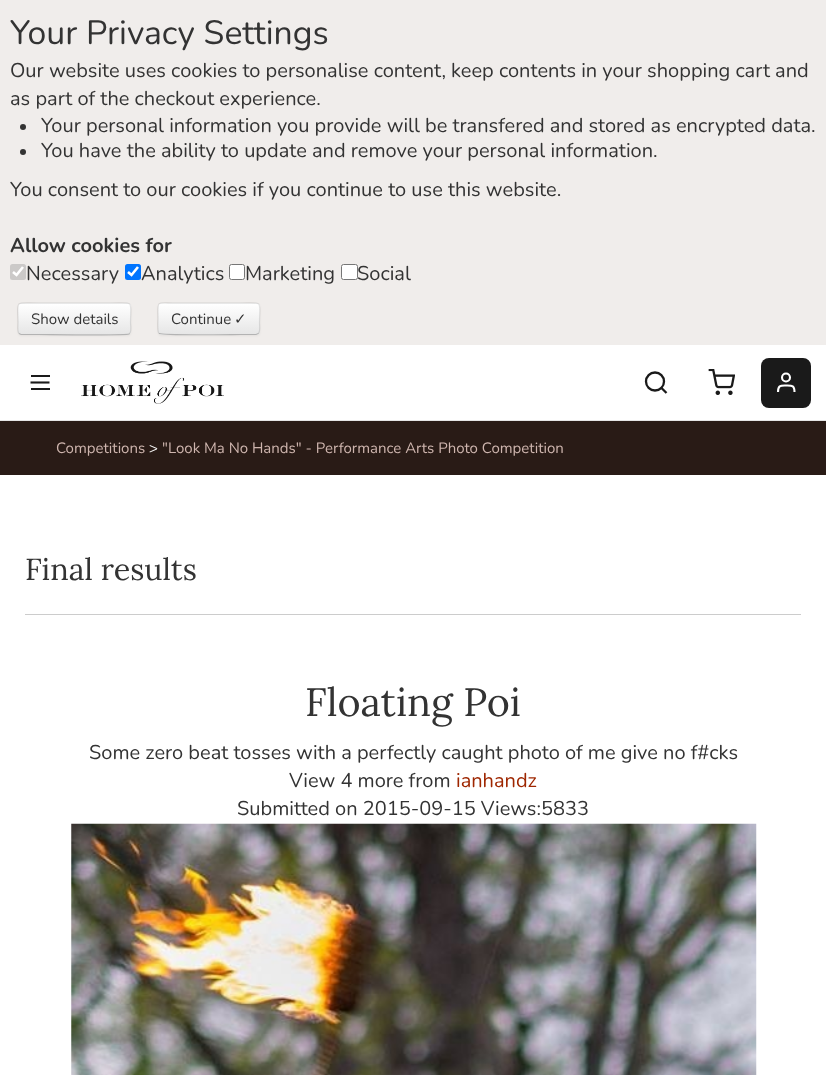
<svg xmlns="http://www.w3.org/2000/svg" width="826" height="1075">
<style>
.a{font:33.75px Nunito;fill:#333}
.b{font:20px Nunito;fill:#333}
.c{font:bold 20px Nunito;fill:#333}
.d{font:15px Nunito;fill:#333}
.e{font:15px DejaVu Sans;fill:#333}
.f{font:15px Nunito;fill:#ceb5ae}
.g{font:15px Nunito;fill:#fff}
.h{font:30.5px Lora;fill:#333}
.i{font:39.5px Lora;fill:#333}
.j{font:20px Nunito;fill:#9e2600}
</style>
<defs>
<clipPath id="clip1"><rect x="18" y="303" width="113" height="32" rx="4"/></clipPath>
<linearGradient id="g1" gradientUnits="userSpaceOnUse" x1="74" y1="304" x2="74" y2="334"><stop offset="0" stop-color="#fff"/><stop offset="1" stop-color="#e6e6e6"/></linearGradient>
<clipPath id="clip2"><rect x="158" y="303" width="102" height="32" rx="4"/></clipPath>
<linearGradient id="g2" gradientUnits="userSpaceOnUse" x1="209" y1="304" x2="209" y2="334"><stop offset="0" stop-color="#fff"/><stop offset="1" stop-color="#e6e6e6"/></linearGradient>
</defs>
<rect width="100%" height="100%" fill="#fff"/>
<path fill="#f0edeb" d="M0 0h826v345H0z"/>
<circle fill="#333" cx="23" cy="127" r="3"/>
<circle fill="#333" cx="23" cy="152" r="3"/>
<rect fill="#cbc9c8" x="10" y="264" width="16" height="16" rx="2.5"/>
<path fill="none" stroke="#fff" stroke-width="2.6" d="M13 272l3.5 3l6.5-8"/>
<rect fill="#0075ff" x="125" y="264" width="16" height="16" rx="2.5"/>
<path fill="none" stroke="#fff" stroke-width="2.6" d="M128 272l3.5 3l6.5-8"/>
<rect fill="#fff" stroke="#767676" x="229.5" y="264.5" width="15" height="15" rx="2"/>
<rect fill="#fff" stroke="#767676" x="341.5" y="264.5" width="16" height="15" rx="2"/>
<rect fill="#0000000d" filter="blur(1px)" x="18" y="304" width="113" height="32" rx="4"/>
<rect fill="#f5f5f5" x="18" y="303" width="113" height="32" rx="4"/>
<g clip-path="url(#clip1)">
<path fill="url(#g1)" d="M18 304h113v30H18z"/>
</g>
<path fill="none" stroke="#b3b3b3" stroke-width="1.2" d="M129.5 333.5l-.5 .5c-2 1.5-80.5 .5-90 .5h-18l-2-1"/>
<path fill="none" stroke="#0000001a" stroke-width="1.2" d="M19 333.5c-2-2-1-8-1-10.5c0-24-4.5-20 21-20h71c25 0 20.5-4 20.5 20c0 2.5 1.5 8.5-1 10.5"/>
<rect fill="#0000000d" filter="blur(1px)" x="158" y="304" width="102" height="32" rx="4"/>
<rect fill="#f5f5f5" x="158" y="303" width="102" height="32" rx="4"/>
<g clip-path="url(#clip2)">
<path fill="url(#g2)" d="M158 304h102v30H158z"/>
</g>
<path fill="none" stroke="#b3b3b3" stroke-width="1.2" d="M258.5 333.5l-2.5 1h-15.5c-8.5 0-79 1-81-1h-.5"/>
<path fill="none" stroke="#0000001a" stroke-width="1.2" d="M159 333.5c-2-2-1-12-1-14.5c0-20-2.5-16 19-16h63.5c23.5 0 19-3.5 19 20c0 2.5 1 8.5-1 10.5"/>
<path fill="#e5e5e5" d="M0 420h826v1H0z"/>
<path fill="#1a1a1a" d="M31 375h19v2H31z"/>
<path fill="none" stroke="#1a1a1a" stroke-width="2.1" d="M30.5 382.5h19"/>
<path fill="#1a1a1a" d="M31 388h19v2H31z"/>
<image href="1.png" x="81" y="361" width="143" height="43"/>
<circle fill="none" stroke="#1a1a1a" stroke-width="2.3" cx="655" cy="381.5" r="9"/>
<path fill="none" stroke="#1a1a1a" stroke-width="2.3" d="M666.5 393l-5-5"/>
<image href="2.png" x="708" y="369" width="27" height="26"/>
<rect fill="#1a1a1a" x="761" y="358" width="50" height="50" rx="8"/>
<path fill="none" stroke="#fff" stroke-width="2.1" d="M794.5 392c0-7-2.5-6.5-8.5-6.5c-5.5 0-8-.5-8 6.5"/>
<circle fill="none" stroke="#fff" stroke-width="2.1" cx="786" cy="377.5" r="4"/>
<path fill="#291b16" d="M0 421h826v54H0z"/>
<path fill="#ccc" d="M25 614h776v1H25z"/>
<image href="3.png" x="71" y="823" width="686" height="252"/>
<text class="a" x="10" y="44">Your Privacy Settings</text>
<text class="b" x="10" y="77">Our website uses cookies to personalise content, keep contents in your shopping cart and</text>
<text class="b" x="10" y="105">as part of the checkout experience.</text>
<text class="b" x="41" y="132">Your personal information you provide will be transfered and stored as encrypted data.</text>
<text class="b" x="41" y="157">You have the ability to update and remove your personal information.</text>
<text class="b" x="10" y="196">You consent to our cookies if you continue to use this website.</text>
<text class="c" x="10" y="252">Allow cookies for</text>
<text class="b" x="26" y="280">Necessary</text>
<text class="b" x="141" y="280">Analytics</text>
<text class="b" x="245" y="280">Marketing</text>
<text class="b" x="357" y="280">Social</text>
<text class="d" x="31" y="324">Show details</text>
<text class="d" x="171" y="324">Continue</text>
<text class="e" x="234" y="324">✓</text>
<text class="f" x="56" y="453">Competitions</text>
<text class="g" x="149" y="453">&gt;</text>
<text class="f" x="162" y="453">"Look Ma No Hands" - Performance Arts Photo Competition</text>
<text class="h" x="25" y="580">Final results</text>
<text class="i" x="305" y="716">Floating Poi</text>
<text class="b" x="89" y="759">Some zero beat tosses with a perfectly caught photo of me give no f#cks</text>
<text class="b" x="289" y="787">View 4 more from</text>
<text class="j" x="456" y="787">ianhandz</text>
<text class="b" x="237" y="815">Submitted on 2015-09-15 Views:5833</text>
</svg>
